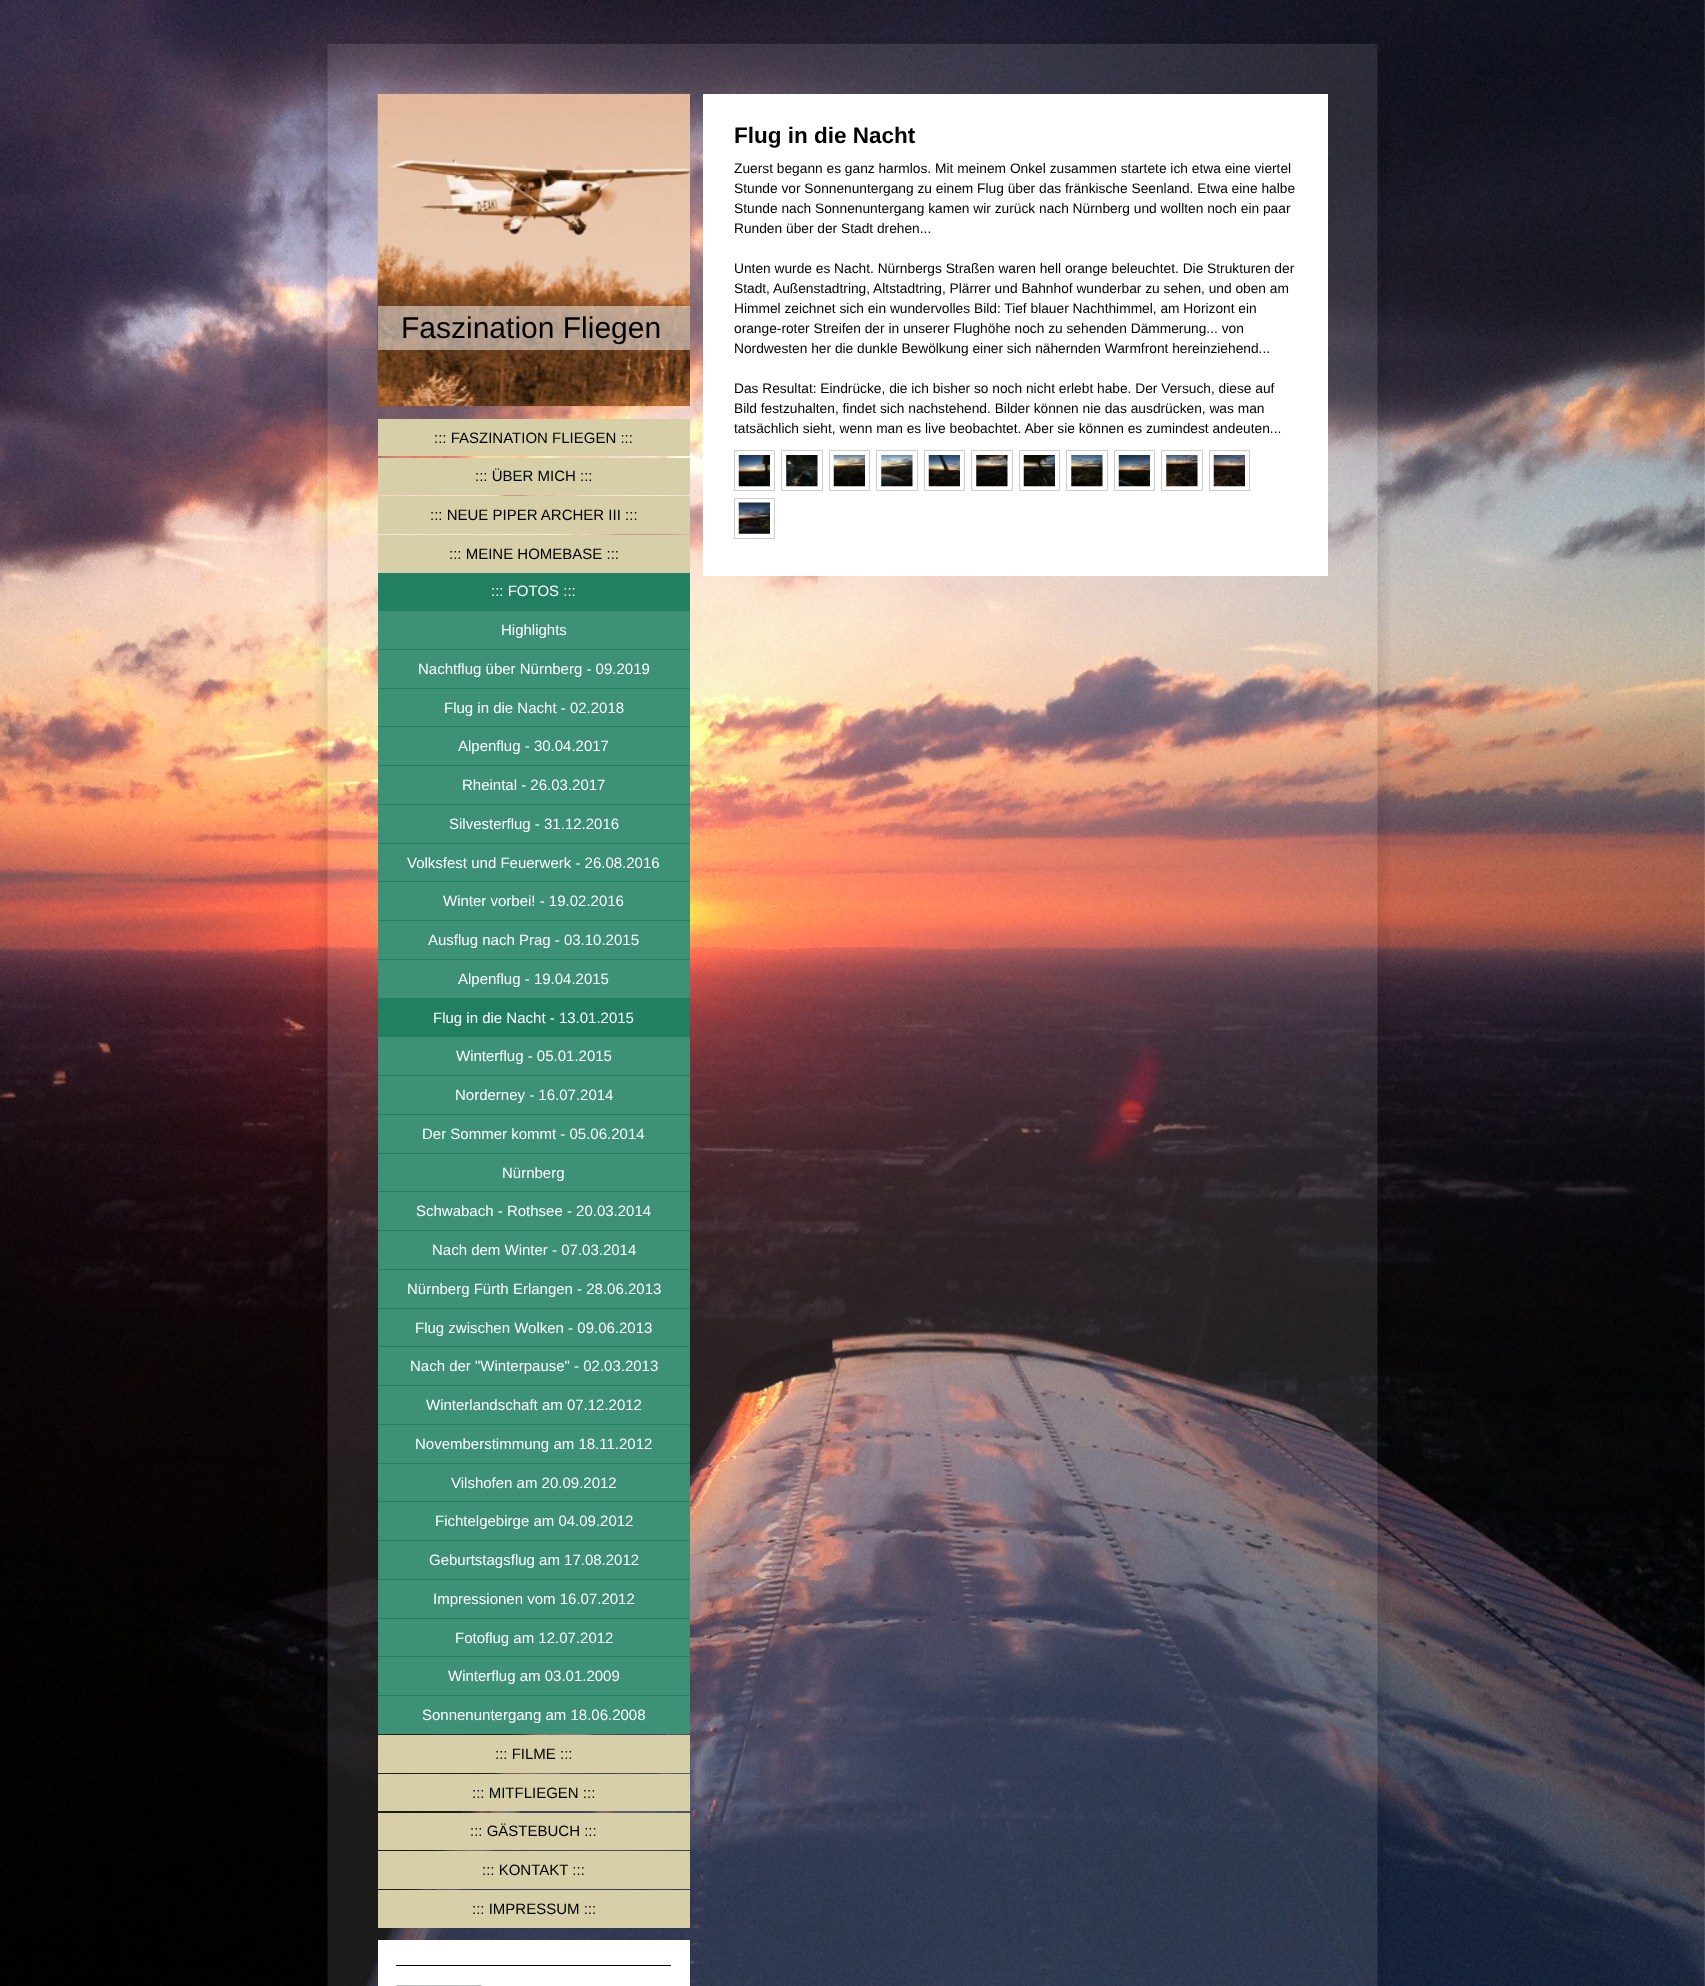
<svg xmlns="http://www.w3.org/2000/svg" width="1705" height="1986">
<style>
.a{font:bold 22.5px Liberation Sans;fill:#000}
.b{font:13.75px Liberation Sans;fill:#000}
.c{font:30px Liberation Sans;fill:#000}
.d{font:15px Liberation Sans;fill:#000}
.e{font:15px Liberation Sans;fill:#fff}
</style>
<rect width="100%" height="100%" fill="#fff"/>
<image href="1.png" x="0" y="0" width="1705" height="1986"/>
<image href="2.png" x="327" y="39" width="1051" height="11"/>
<image href="3.png" x="315" y="50" width="1075" height="1936"/>
<path fill="#fff" d="M703 94h625v482H703z"/>
<path fill="none" stroke="#ccc" d="M734.5 450.5h40v40H734.5z"/>
<image href="4.png" x="738" y="455" width="32" height="32"/>
<path fill="none" stroke="#ccc" d="M781.5 450.5h41v40H781.5z"/>
<image href="5.png" x="786" y="455" width="32" height="32"/>
<path fill="none" stroke="#ccc" d="M829.5 450.5h40v40H829.5z"/>
<image href="6.png" x="833" y="455" width="32" height="32"/>
<path fill="none" stroke="#ccc" d="M876.5 450.5h41v40H876.5z"/>
<image href="7.png" x="881" y="455" width="32" height="32"/>
<path fill="none" stroke="#ccc" d="M924.5 450.5h40v40H924.5z"/>
<image href="8.png" x="928" y="455" width="32" height="32"/>
<path fill="none" stroke="#ccc" d="M971.5 450.5h41v40H971.5z"/>
<image href="9.png" x="976" y="455" width="32" height="32"/>
<path fill="none" stroke="#ccc" d="M1019.5 450.5h40v40H1019.5z"/>
<image href="10.png" x="1023" y="455" width="32" height="32"/>
<path fill="none" stroke="#ccc" d="M1066.5 450.5h41v40H1066.5z"/>
<image href="11.png" x="1071" y="455" width="32" height="32"/>
<path fill="none" stroke="#ccc" d="M1114.5 450.5h40v40H1114.5z"/>
<image href="12.png" x="1118" y="455" width="32" height="32"/>
<path fill="none" stroke="#ccc" d="M1161.5 450.5h41v40H1161.5z"/>
<image href="13.png" x="1166" y="455" width="32" height="32"/>
<path fill="none" stroke="#ccc" d="M1209.5 450.5h40v40H1209.5z"/>
<image href="14.png" x="1213" y="455" width="32" height="32"/>
<path fill="none" stroke="#ccc" d="M734.5 498.5h40v40H734.5z"/>
<image href="15.png" x="738" y="502" width="32" height="32"/>
<image href="16.png" x="377" y="93" width="313" height="314"/>
<path fill="#ffffff80" d="M378 306h312v44H378z"/>
<path fill="#d6cfa7" d="M378 419h312v37H378z"/>
<path fill="#d6cfa7" d="M378 458h312v37H378z"/>
<path fill="#d6cfa7" d="M378 496h312v38H378z"/>
<path fill="#d6cfa7" d="M378 535h312v38H378z"/>
<path fill="#227f62" d="M378 573h312v38H378z"/>
<path fill="#3d9177" d="M378 611h312v38H378z"/>
<path fill="#3d9177" d="M378 650h312v38H378z"/>
<path fill="#227f62" d="M378 649h312v1H378z"/>
<path fill="#3d9177" d="M378 689h312v37H378z"/>
<path fill="#227f62" d="M378 688h312v1H378z"/>
<path fill="#3d9177" d="M378 727h312v38H378z"/>
<path fill="#227f62" d="M378 726h312v1H378z"/>
<path fill="#3d9177" d="M378 766h312v38H378z"/>
<path fill="#227f62" d="M378 765h312v1H378z"/>
<path fill="#3d9177" d="M378 805h312v38H378z"/>
<path fill="#227f62" d="M378 804h312v1H378z"/>
<path fill="#3d9177" d="M378 844h312v37H378z"/>
<path fill="#227f62" d="M378 843h312v1H378z"/>
<path fill="#3d9177" d="M378 882h312v38H378z"/>
<path fill="#227f62" d="M378 881h312v1H378z"/>
<path fill="#3d9177" d="M378 921h312v38H378z"/>
<path fill="#227f62" d="M378 920h312v1H378z"/>
<path fill="#3d9177" d="M378 960h312v38H378z"/>
<path fill="#227f62" d="M378 959h312v1H378z"/>
<path fill="#227f62" d="M378 998h312v39H378z"/>
<path fill="#3d9177" d="M378 1037h312v38H378z"/>
<path fill="#3d9177" d="M378 1076h312v38H378z"/>
<path fill="#227f62" d="M378 1075h312v1H378z"/>
<path fill="#3d9177" d="M378 1115h312v38H378z"/>
<path fill="#227f62" d="M378 1114h312v1H378z"/>
<path fill="#3d9177" d="M378 1154h312v37H378z"/>
<path fill="#227f62" d="M378 1153h312v1H378z"/>
<path fill="#3d9177" d="M378 1192h312v38H378z"/>
<path fill="#227f62" d="M378 1191h312v1H378z"/>
<path fill="#3d9177" d="M378 1231h312v38H378z"/>
<path fill="#227f62" d="M378 1230h312v1H378z"/>
<path fill="#3d9177" d="M378 1270h312v38H378z"/>
<path fill="#227f62" d="M378 1269h312v1H378z"/>
<path fill="#3d9177" d="M378 1309h312v37H378z"/>
<path fill="#227f62" d="M378 1308h312v1H378z"/>
<path fill="#3d9177" d="M378 1347h312v38H378z"/>
<path fill="#227f62" d="M378 1346h312v1H378z"/>
<path fill="#3d9177" d="M378 1386h312v38H378z"/>
<path fill="#227f62" d="M378 1385h312v1H378z"/>
<path fill="#3d9177" d="M378 1425h312v38H378z"/>
<path fill="#227f62" d="M378 1424h312v1H378z"/>
<path fill="#3d9177" d="M378 1464h312v37H378z"/>
<path fill="#227f62" d="M378 1463h312v1H378z"/>
<path fill="#3d9177" d="M378 1502h312v38H378z"/>
<path fill="#227f62" d="M378 1501h312v1H378z"/>
<path fill="#3d9177" d="M378 1541h312v38H378z"/>
<path fill="#227f62" d="M378 1540h312v1H378z"/>
<path fill="#3d9177" d="M378 1580h312v38H378z"/>
<path fill="#227f62" d="M378 1579h312v1H378z"/>
<path fill="#3d9177" d="M378 1619h312v37H378z"/>
<path fill="#227f62" d="M378 1618h312v1H378z"/>
<path fill="#3d9177" d="M378 1657h312v38H378z"/>
<path fill="#227f62" d="M378 1656h312v1H378z"/>
<path fill="#3d9177" d="M378 1696h312v38H378z"/>
<path fill="#227f62" d="M378 1695h312v1H378z"/>
<path fill="#d6cfa7" d="M378 1735h312v38H378z"/>
<path fill="#d6cfa7" d="M378 1774h312v37H378z"/>
<path fill="#d6cfa7" d="M378 1813h312v37H378z"/>
<path fill="#d6cfa7" d="M378 1851h312v38H378z"/>
<path fill="#d6cfa7" d="M378 1890h312v38H378z"/>
<path fill="#fff" d="M378 1940h312v46H378z"/>
<path fill="#000" d="M396 1965h275v1H396z"/>
<image href="17.png" x="396" y="1985" width="8" height="1"/>
<image href="18.png" x="403" y="1985" width="15" height="1"/>
<image href="19.png" x="417" y="1985" width="15" height="1"/>
<image href="20.png" x="431" y="1985" width="14" height="1"/>
<image href="21.png" x="445" y="1985" width="14" height="1"/>
<image href="22.png" x="458" y="1985" width="14" height="1"/>
<image href="23.png" x="471" y="1985" width="11" height="1"/>
<text class="a" x="734" y="143">Flug in die Nacht</text>
<text class="b" x="734" y="173">Zuerst begann es ganz harmlos. Mit meinem Onkel zusammen startete ich etwa eine viertel</text>
<text class="b" x="734" y="193">Stunde vor Sonnenuntergang zu einem Flug über das fränkische Seenland. Etwa eine halbe</text>
<text class="b" x="734" y="213">Stunde nach Sonnenuntergang kamen wir zurück nach Nürnberg und wollten noch ein paar</text>
<text class="b" x="734" y="233">Runden über der Stadt drehen...</text>
<text class="b" x="734" y="273">Unten wurde es Nacht. Nürnbergs Straßen waren hell orange beleuchtet. Die Strukturen der</text>
<text class="b" x="734" y="293">Stadt, Außenstadtring, Altstadtring, Plärrer und Bahnhof wunderbar zu sehen, und oben am</text>
<text class="b" x="734" y="313">Himmel zeichnet sich ein wundervolles Bild: Tief blauer Nachthimmel, am Horizont ein</text>
<text class="b" x="734" y="333">orange-roter Streifen der in unserer Flughöhe noch zu sehenden Dämmerung... von</text>
<text class="b" x="734" y="353">Nordwesten her die dunkle Bewölkung einer sich nähernden Warmfront hereinziehend...</text>
<text class="b" x="734" y="393">Das Resultat: Eindrücke, die ich bisher so noch nicht erlebt habe. Der Versuch, diese auf</text>
<text class="b" x="734" y="413">Bild festzuhalten, findet sich nachstehend. Bilder können nie das ausdrücken, was man</text>
<text class="b" x="734" y="433">tatsächlich sieht, wenn man es live beobachtet. Aber sie können es zumindest andeuten...</text>
<text class="c" x="401" y="338">Faszination Fliegen</text>
<text class="d" x="434" y="443">::: FASZINATION FLIEGEN :::</text>
<text class="d" x="475" y="481">::: ÜBER MICH :::</text>
<text class="d" x="430" y="520">::: NEUE PIPER ARCHER III :::</text>
<text class="d" x="449" y="559">::: MEINE HOMEBASE :::</text>
<text class="e" x="491" y="596">::: FOTOS :::</text>
<text class="e" x="501" y="635">Highlights</text>
<text class="e" x="418" y="674">Nachtflug über Nürnberg - 09.2019</text>
<text class="e" x="444" y="713">Flug in die Nacht - 02.2018</text>
<text class="e" x="458" y="751">Alpenflug - 30.04.2017</text>
<text class="e" x="462" y="790">Rheintal - 26.03.2017</text>
<text class="e" x="449" y="829">Silvesterflug - 31.12.2016</text>
<text class="e" x="407" y="868">Volksfest und Feuerwerk - 26.08.2016</text>
<text class="e" x="443" y="906">Winter vorbei! - 19.02.2016</text>
<text class="e" x="428" y="945">Ausflug nach Prag - 03.10.2015</text>
<text class="e" x="458" y="984">Alpenflug - 19.04.2015</text>
<text class="e" x="433" y="1023">Flug in die Nacht - 13.01.2015</text>
<text class="e" x="456" y="1061">Winterflug - 05.01.2015</text>
<text class="e" x="455" y="1100">Norderney - 16.07.2014</text>
<text class="e" x="422" y="1139">Der Sommer kommt - 05.06.2014</text>
<text class="e" x="502" y="1178">Nürnberg</text>
<text class="e" x="416" y="1216">Schwabach - Rothsee - 20.03.2014</text>
<text class="e" x="432" y="1255">Nach dem Winter - 07.03.2014</text>
<text class="e" x="407" y="1294">Nürnberg Fürth Erlangen - 28.06.2013</text>
<text class="e" x="415" y="1333">Flug zwischen Wolken - 09.06.2013</text>
<text class="e" x="410" y="1371">Nach der "Winterpause" - 02.03.2013</text>
<text class="e" x="426" y="1410">Winterlandschaft am 07.12.2012</text>
<text class="e" x="415" y="1449">Novemberstimmung am 18.11.2012</text>
<text class="e" x="451" y="1488">Vilshofen am 20.09.2012</text>
<text class="e" x="435" y="1526">Fichtelgebirge am 04.09.2012</text>
<text class="e" x="429" y="1565">Geburtstagsflug am 17.08.2012</text>
<text class="e" x="433" y="1604">Impressionen vom 16.07.2012</text>
<text class="e" x="455" y="1643">Fotoflug am 12.07.2012</text>
<text class="e" x="448" y="1681">Winterflug am 03.01.2009</text>
<text class="e" x="422" y="1720">Sonnenuntergang am 18.06.2008</text>
<text class="d" x="495" y="1759">::: FILME :::</text>
<text class="d" x="472" y="1798">::: MITFLIEGEN :::</text>
<text class="d" x="470" y="1836">::: GÄSTEBUCH :::</text>
<text class="d" x="482" y="1875">::: KONTAKT :::</text>
<text class="d" x="472" y="1914">::: IMPRESSUM :::</text>
</svg>
